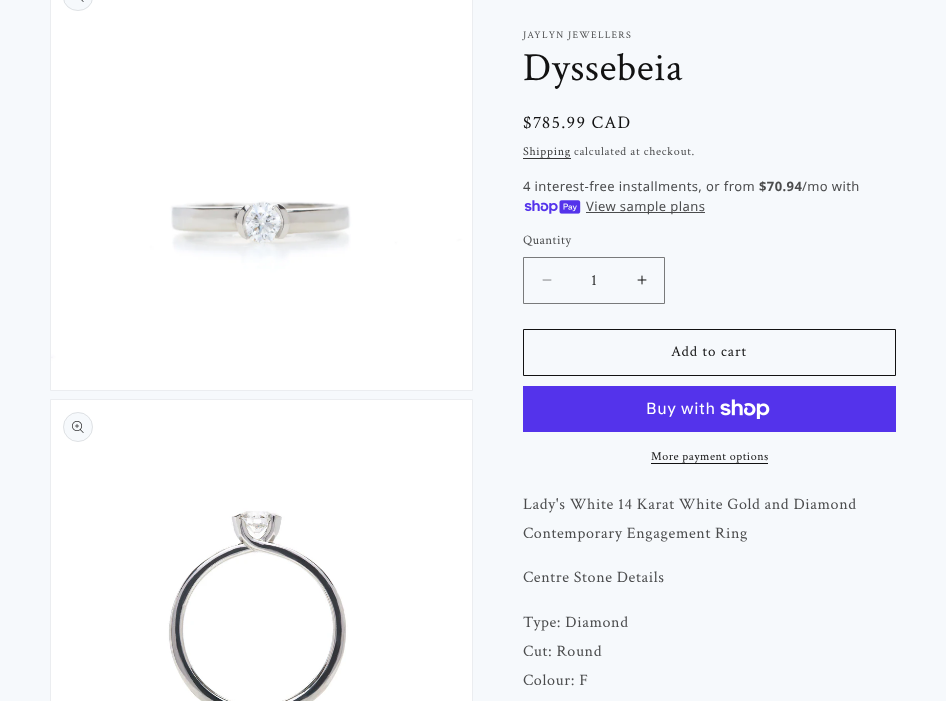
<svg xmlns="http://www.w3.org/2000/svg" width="946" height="701">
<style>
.a{font:10px Crimson Text;letter-spacing:1.25px;fill:#4b4c4d}
.b{font:40px Crimson Text;letter-spacing:0.6px;fill:#121212}
.c{font:18px Crimson Text;letter-spacing:1.25px;fill:#121212}
.d{font:12px Crimson Text;letter-spacing:0.7px;fill:#343535}
.e{font:12px Crimson Text;letter-spacing:0.7px;fill:#4b4c4d}
.f{font:13px Noto Sans;letter-spacing:0.4px;fill:#4b4c4d}
.g{font:bold 13px Noto Sans;letter-spacing:0.4px;fill:#4b4c4d}
.h{font:13px Crimson Text;letter-spacing:0.4px;fill:#4b4c4d}
.i{font:16px Crimson Text;fill:#343535}
.j{font:15px Crimson Text;letter-spacing:1px;fill:#121212}
.k{font:16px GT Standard;letter-spacing:0.6px;fill:#fff}
.l{font:12px Crimson Text;letter-spacing:0.5px;fill:#121212}
.m{font:16px Crimson Text;letter-spacing:0.6px;fill:#4b4c4d}
</style>
<rect width="100%" height="100%" fill="#f6f9fc"/>
<path fill="none" stroke="#ebedf0" d="M50.5 -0.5h422v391H50.5z"/>
<image href="2.png" x="51" y="0" width="421" height="390"/>
<rect fill="#f6f9fc" x="63" y="-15" width="30" height="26" rx="15"/>
<rect fill="none" stroke="#1212121a" x="63.5" y="-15.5" width="29" height="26" rx="14.5"/>
<image href="1.png" x="81" y="0" width="3" height="2"/>
<path fill="none" stroke="#ebedf0" d="M50.5 399.5h422v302H50.5z"/>
<image href="3.png" x="51" y="400" width="421" height="301"/>
<circle fill="#f6f9fc" cx="78" cy="427" r="15"/>
<circle fill="none" stroke="#1212121a" cx="78" cy="427" r="14.5"/>
<image href="4.png" x="72" y="421" width="12" height="12"/>
<path fill="#343535" d="M523 158h48v1H523z"/>
<image href="5.png" x="524" y="200" width="57" height="14"/>
<path fill="#4b4c4d" d="M586 212h119v1H586z"/>
<image href="6.png" x="542" y="279" width="10" height="2"/>
<image href="7.png" x="637" y="275" width="10" height="10"/>
<path fill="none" stroke="#797a7b" d="M523.5 257.5h141v46H523.5z"/>
<path fill="none" stroke="#121212" d="M523.5 329.5h372v46H523.5z"/>
<path fill="#5433eb" d="M523 386h373v46H523z"/>
<image href="8.png" x="720" y="399" width="50" height="20"/>
<path fill="#121212" d="M651 463h117v1H651z"/>
<text class="a" x="523" y="38">JAYLYN JEWELLERS</text>
<text class="b" x="523" y="80">Dyssebeia</text>
<text class="c" x="523" y="128">$785.99 CAD</text>
<text class="d" x="523" y="155">Shipping</text>
<text class="e" x="574" y="155">calculated at checkout.</text>
<text class="f" x="523" y="191">4 interest-free installments, or from</text>
<text class="g" x="759" y="191">$70.94</text>
<text class="f" x="802" y="191">/mo with</text>
<text class="f" x="586" y="211">View sample plans</text>
<text class="h" x="523" y="244">Quantity</text>
<text class="i" x="591" y="285">1</text>
<text class="j" x="671" y="356">Add to cart</text>
<text class="k" x="646" y="414">Buy with</text>
<text class="l" x="651" y="460">More payment options</text>
<text class="m" x="523" y="509">Lady's White 14 Karat White Gold and Diamond</text>
<text class="m" x="523" y="538">Contemporary Engagement Ring</text>
<text class="m" x="523" y="582">Centre Stone Details</text>
<text class="m" x="523" y="627">Type: Diamond</text>
<text class="m" x="523" y="656">Cut: Round</text>
<text class="m" x="523" y="685">Colour: F</text>
</svg>
